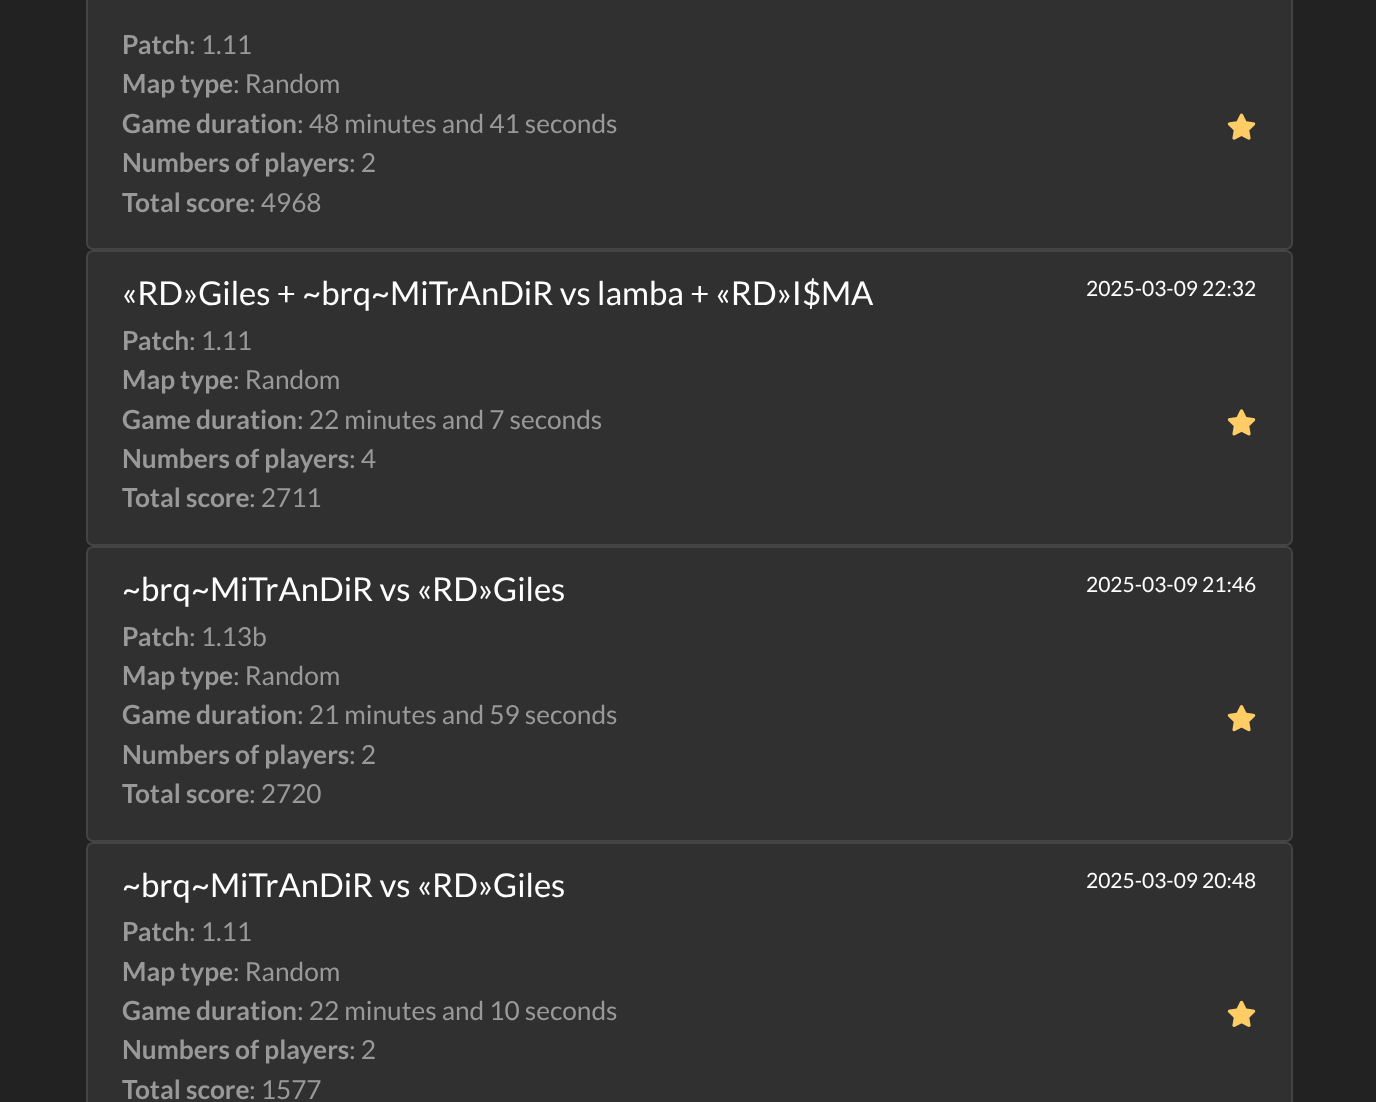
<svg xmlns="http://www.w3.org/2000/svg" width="1376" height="1102">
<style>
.a{font:bold 26.25px Lato;fill:#999}
.b{font:26.25px Lato;fill:#999}
.c{font:32.8px Lato;fill:#fff}
.d{font:21px Lato;fill:#fff}
</style>
<rect width="100%" height="100%" fill="#222"/>
<rect fill="#303030" stroke="#444" stroke-width="2" x="87" y="-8" width="1205" height="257" rx="6"/>
<image href="1.png" x="1227" y="113" width="29" height="27"/>
<rect fill="#303030" stroke="#444" stroke-width="2" x="87" y="251" width="1205" height="294" rx="6"/>
<image href="2.png" x="1227" y="409" width="29" height="27"/>
<rect fill="#303030" stroke="#444" stroke-width="2" x="87" y="547" width="1205" height="294" rx="6"/>
<image href="3.png" x="1227" y="705" width="29" height="27"/>
<rect fill="#303030" stroke="#444" stroke-width="2" x="87" y="843" width="1205" height="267" rx="6"/>
<image href="4.png" x="1227" y="1000" width="29" height="27"/>
<text class="a" x="122" y="54">Patch</text>
<text class="b" x="189" y="54">: 1.11</text>
<text class="a" x="122" y="93">Map type</text>
<text class="b" x="233" y="93">: Random</text>
<text class="a" x="122" y="133">Game duration</text>
<text class="b" x="297" y="133">: 48 minutes and 41 seconds</text>
<text class="a" x="122" y="172">Numbers of players</text>
<text class="b" x="349" y="172">: 2</text>
<text class="a" x="122" y="212">Total score</text>
<text class="b" x="249" y="212">: 4968</text>
<text class="c" x="122" y="305">«RD»Giles + ~brq~MiTrAnDiR vs lamba + «RD»I$MA</text>
<text class="d" x="1086" y="296">2025-03-09 22:32</text>
<text class="a" x="122" y="350">Patch</text>
<text class="b" x="189" y="350">: 1.11</text>
<text class="a" x="122" y="389">Map type</text>
<text class="b" x="233" y="389">: Random</text>
<text class="a" x="122" y="429">Game duration</text>
<text class="b" x="297" y="429">: 22 minutes and 7 seconds</text>
<text class="a" x="122" y="468">Numbers of players</text>
<text class="b" x="349" y="468">: 4</text>
<text class="a" x="122" y="507">Total score</text>
<text class="b" x="249" y="507">: 2711</text>
<text class="c" x="122" y="601">~brq~MiTrAnDiR vs «RD»Giles</text>
<text class="d" x="1086" y="592">2025-03-09 21:46</text>
<text class="a" x="122" y="646">Patch</text>
<text class="b" x="189" y="646">: 1.13b</text>
<text class="a" x="122" y="685">Map type</text>
<text class="b" x="233" y="685">: Random</text>
<text class="a" x="122" y="724">Game duration</text>
<text class="b" x="297" y="724">: 21 minutes and 59 seconds</text>
<text class="a" x="122" y="764">Numbers of players</text>
<text class="b" x="349" y="764">: 2</text>
<text class="a" x="122" y="803">Total score</text>
<text class="b" x="249" y="803">: 2720</text>
<text class="c" x="122" y="897">~brq~MiTrAnDiR vs «RD»Giles</text>
<text class="d" x="1086" y="888">2025-03-09 20:48</text>
<text class="a" x="122" y="941">Patch</text>
<text class="b" x="189" y="941">: 1.11</text>
<text class="a" x="122" y="981">Map type</text>
<text class="b" x="233" y="981">: Random</text>
<text class="a" x="122" y="1020">Game duration</text>
<text class="b" x="297" y="1020">: 22 minutes and 10 seconds</text>
<text class="a" x="122" y="1059">Numbers of players</text>
<text class="b" x="349" y="1059">: 2</text>
<text class="a" x="122" y="1099">Total score</text>
<text class="b" x="249" y="1099">: 1577</text>
</svg>
